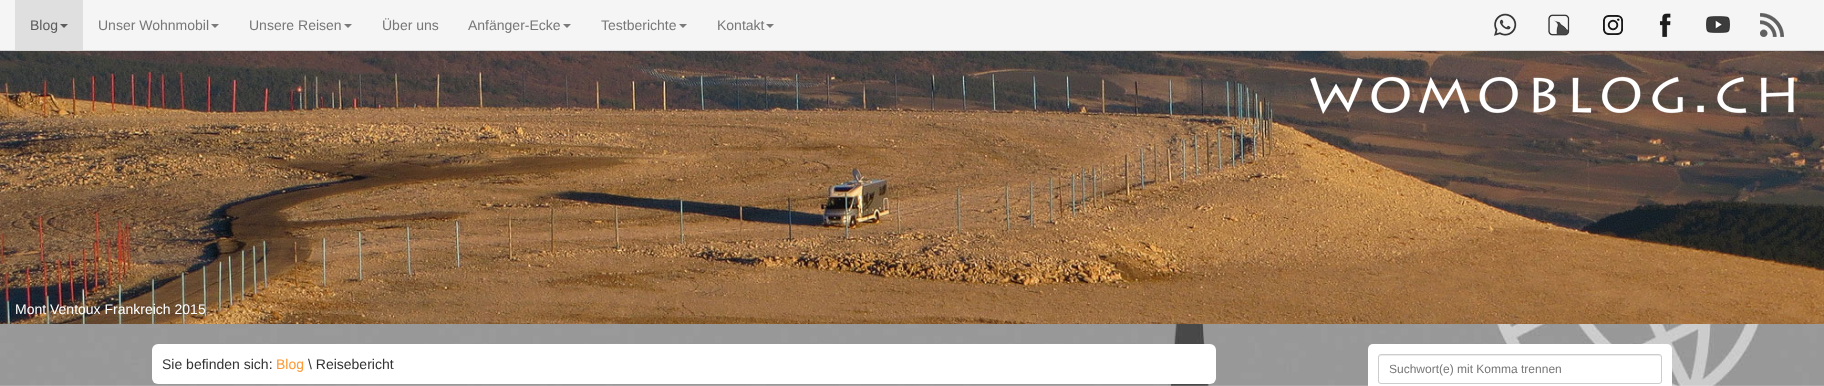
<svg xmlns="http://www.w3.org/2000/svg" width="1824" height="386">
<style>
.a{font:14px Liberation Sans;fill:#5c5c5c}
.b{font:14px Liberation Sans;fill:#777}
.c{font:14px Liberation Sans;fill:#fff}
.d{font:14px Liberation Sans;fill:#333}
.e{font:14px Liberation Sans;fill:#f93}
.f{font:12px Liberation Sans;fill:#777}
</style>
<rect width="100%" height="100%" fill="#fff"/>
<image href="1.png" x="0" y="0" width="1824" height="386"/>
<path fill="#ffffffe6" d="M0 0h1824v50H0z"/>
<image href="9.png" x="0" y="50" width="1824" height="274"/>
<path fill="#e7e7e7e6" d="M0 50h1824v1H0z"/>
<path fill="#dfdfdf" d="M15 0h68v50H15z"/>
<path fill="#5c5c5c" d="M60 24h8l-4 4z"/>
<path fill="#7a7a7a" d="M211 24h8l-4 4z"/>
<path fill="#7a7a7a" d="M344 24h8l-4 4z"/>
<path fill="#7a7a7a" d="M563 24h8l-4 4z"/>
<path fill="#7a7a7a" d="M679 24h8l-4 4z"/>
<path fill="#7a7a7a" d="M766 24h8l-4 4z"/>
<image href="2.png" x="1493" y="13" width="24" height="23"/>
<image href="3.png" x="1548" y="14" width="22" height="22"/>
<image href="4.png" x="1603" y="15" width="20" height="20"/>
<image href="5.png" x="1659" y="13" width="12" height="24"/>
<image href="6.png" x="1706" y="16" width="24" height="17"/>
<image href="7.png" x="1760" y="13" width="24" height="24"/>
<image href="8.png" x="1310" y="76" width="484" height="38"/>
<rect fill="#fff" x="152" y="344" width="1064" height="40" rx="6"/>
<rect fill="#fff" x="1368" y="344" width="304" height="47" rx="5"/>
<path fill="#ececec" d="M1381 356h278c1 0 2 1 2 2c0-1 0-3-2-3h-278c-2 0-2 2-2 3c0-1 1-2 2-2z"/>
<rect fill="none" stroke="#ccc" x="1378.5" y="354.5" width="283" height="29" rx="2.5"/>
<text class="a" x="30" y="30">Blog</text>
<text class="b" x="98" y="30">Unser Wohnmobil</text>
<text class="b" x="249" y="30">Unsere Reisen</text>
<text class="b" x="382" y="30">Über uns</text>
<text class="b" x="468" y="30">Anfänger-Ecke</text>
<text class="b" x="601" y="30">Testberichte</text>
<text class="b" x="717" y="30">Kontakt</text>
<text class="c" x="15" y="314">Mont Ventoux Frankreich 2015</text>
<text class="d" x="162" y="369">Sie befinden sich:</text>
<text class="e" x="276" y="369">Blog</text>
<text class="d" x="308" y="369">\ Reisebericht</text>
<text class="f" x="1389" y="373">Suchwort(e) mit Komma trennen</text>
</svg>
